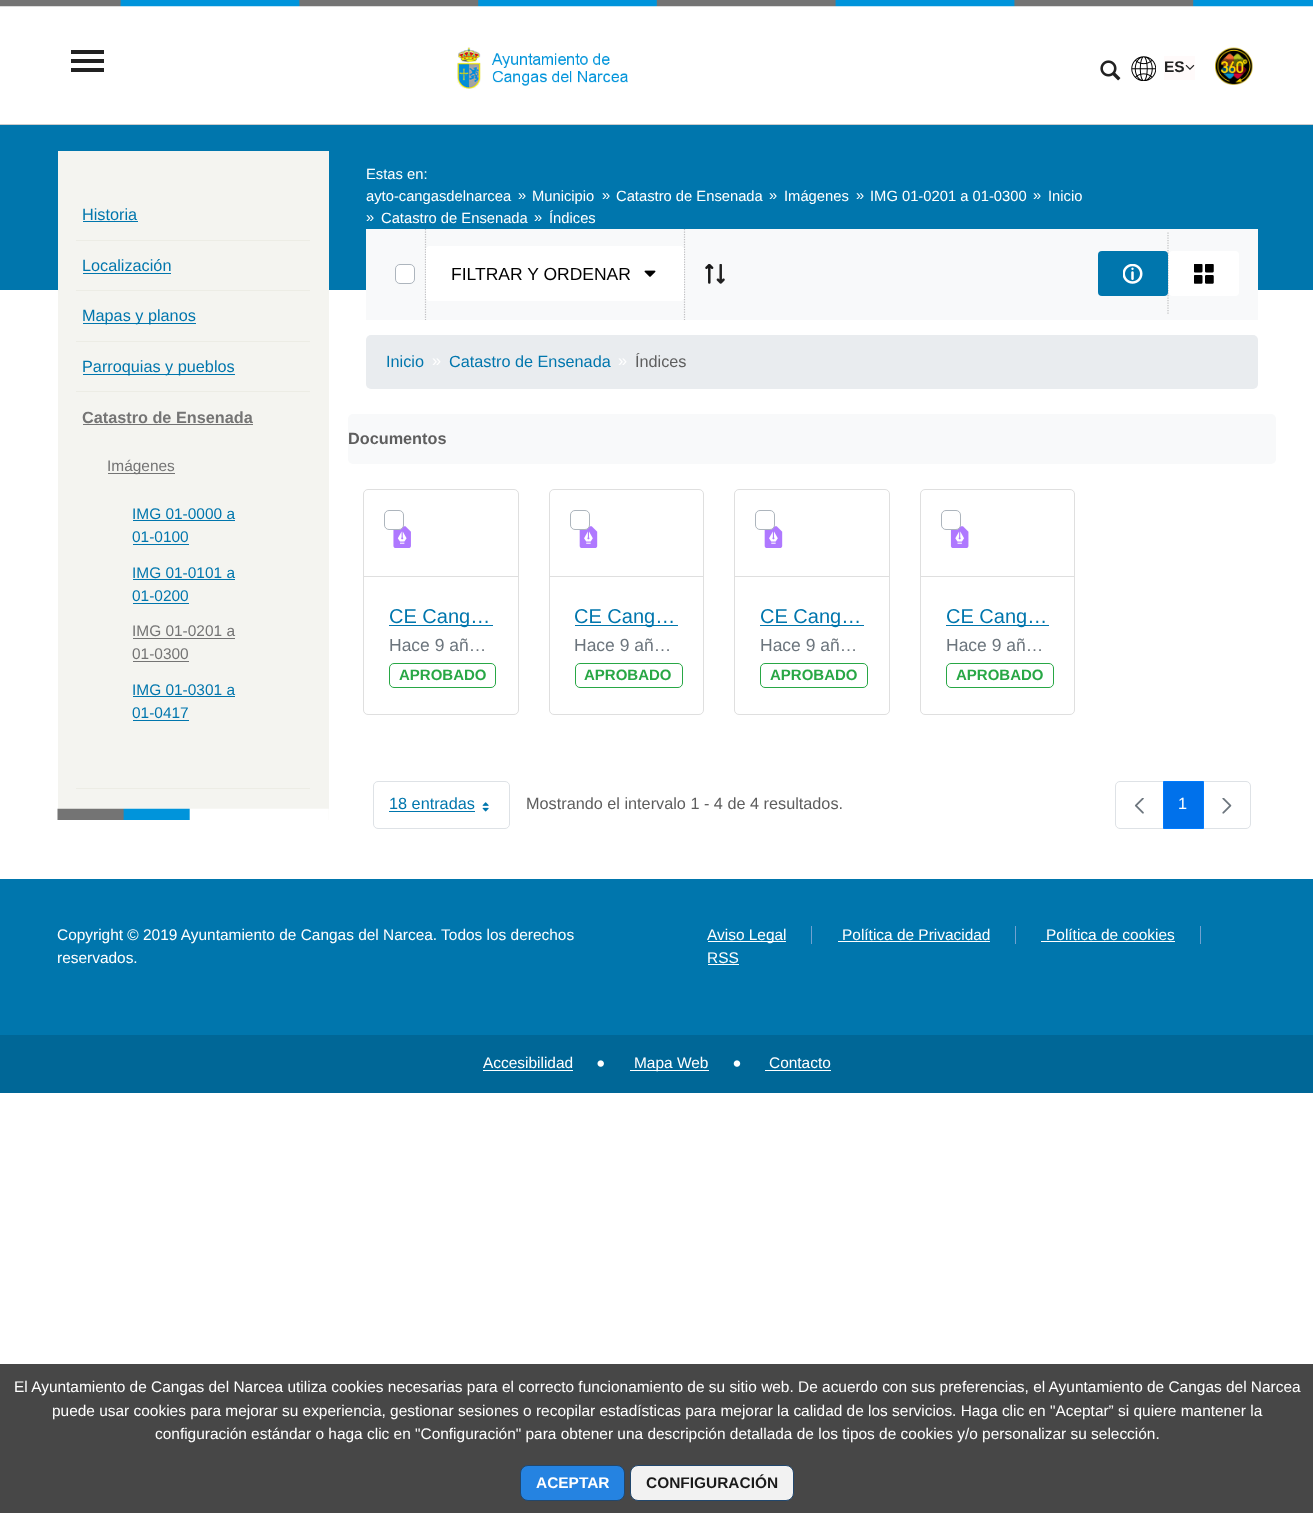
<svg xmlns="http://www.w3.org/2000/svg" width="1313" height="1513">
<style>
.a{font:bold 15.45px Liberation Sans;fill:#212121}
.b{font:16.25px Liberation Sans;fill:#0076ad}
.c{font:bold 16.25px Liberation Sans;fill:#747474}
.d{font:15.45px Liberation Sans;fill:#747474}
.e{font:15.45px Liberation Sans;fill:#0076ad}
.f{font:14.75px Liberation Sans;fill:#fff}
.g{font:17.5px Liberation Sans;fill:#000}
.h{font:16.25px Liberation Sans;fill:#fff}
.i{font:16.25px Liberation Sans;fill:#5e5e5e}
.j{font:bold 16.25px Liberation Sans;fill:#5e5e5e}
.k{font:20px Liberation Sans;fill:#0076ad}
.l{font:17.5px Liberation Sans;fill:#6c757d}
.m{font:bold 15px Liberation Sans;fill:#28a745}
.n{font:15.45px Liberation Sans;fill:#fff}
.o{font:bold 15.45px Liberation Sans;fill:#fff}
.p{font:bold 15.45px Liberation Sans;fill:#1a1a1a}
</style>
<rect width="100%" height="100%" fill="#fff"/>
<image href="1.png" x="0" y="0" width="1313" height="7"/>
<path fill="#ccc" d="M0 124h1313v1H0z"/>
<path fill="#212121" d="M71 50h33v4H71z"/>
<path fill="#212121" d="M71 59h33v4H71z"/>
<path fill="#212121" d="M71 68h33v4H71z"/>
<image href="2.png" x="457" y="47" width="171" height="42"/>
<image href="3.png" x="1100" y="60" width="21" height="21"/>
<image href="4.png" x="1131" y="56" width="25" height="25"/>
<path fill="#fffafa" d="M1164 56h31v24H1164z"/>
<image href="5.png" x="1185" y="64" width="10" height="6"/>
<image href="6.png" x="1215" y="47" width="38" height="38"/>
<path fill="#0076ad" d="M0 125h1313v165H0z"/>
<path fill="#f4f4f0" d="M58 151h271v669H58z"/>
<image href="7.png" x="57" y="808" width="272" height="12"/>
<path fill="#ecece5" d="M76 240h234v1H76z"/>
<path fill="#0076ad" d="M83 221h55v1H83z"/>
<path fill="#ecece5" d="M76 290h234v1H76z"/>
<path fill="#0076ad" d="M83 273h88v1H83z"/>
<path fill="#ecece5" d="M76 341h234v1H76z"/>
<path fill="#0076ad" d="M83 323h113v1H83z"/>
<path fill="#ecece5" d="M76 391h234v1H76z"/>
<path fill="#0076ad" d="M83 374h152v1H83z"/>
<path fill="#ecece5" d="M76 788h234v1H76z"/>
<path fill="#747474" d="M83 424h170v1H83z"/>
<path fill="#747474" d="M108 473h67v1H108z"/>
<path fill="#0076ad" d="M133 520h102v1H133z"/>
<path fill="#0076ad" d="M133 544h56v1H133z"/>
<path fill="#0076ad" d="M133 579h102v1H133z"/>
<path fill="#0076ad" d="M133 603h56v1H133z"/>
<path fill="#747474" d="M133 638h102v1H133z"/>
<path fill="#747474" d="M133 661h56v1H133z"/>
<path fill="#0076ad" d="M133 696h102v1H133z"/>
<path fill="#0076ad" d="M133 720h56v1H133z"/>
<path fill="#f8f9fa" d="M366 229h892v91H366z"/>
<path fill="none" stroke="#bfbfc1" stroke-width="1.2" stroke-dasharray="1.25 1.25" d="M425.5 229v91"/>
<rect fill="#fff" stroke="#adb5bd" x="395.5" y="264.5" width="19" height="19" rx="4.5"/>
<path fill="none" stroke="#bfbfc1" stroke-width="1.2" stroke-dasharray="1.25 1.25" d="M684.5 229v91"/>
<rect fill="#fff" x="426" y="246" width="258" height="55" rx="4"/>
<image href="8.png" x="644" y="270" width="12" height="7"/>
<image href="9.png" x="705" y="264" width="20" height="20"/>
<path fill="none" stroke="#bfbfc1" stroke-width="1.2" stroke-dasharray="1.25 1.25" d="M1168 232.5v82.5"/>
<rect fill="#0076ad" x="1098" y="251" width="70" height="45" rx="4"/>
<image href="10.png" x="1123" y="264" width="20" height="20"/>
<rect fill="#fff" x="1169" y="251" width="70" height="45" rx="4"/>
<image href="11.png" x="1194" y="264" width="20" height="20"/>
<rect fill="#e9ecef" x="366" y="335" width="892" height="54" rx="5"/>
<rect fill="#f8f9fa" x="348" y="414" width="928" height="50" rx="5"/>
<rect fill="none" stroke="#dfdfdf" x="363.5" y="489.5" width="155" height="225" rx="4.5"/>
<path fill="#dfdfdf" d="M364 576h154v1H364z"/>
<image href="12.png" x="393" y="526" width="18" height="22"/>
<rect fill="#fff" stroke="#adb5bd" x="384.5" y="510.5" width="19" height="19" rx="4.5"/>
<path fill="#0076ad" d="M389 625h104v1H389z"/>
<rect fill="none" stroke="#28a745" x="389.5" y="663.5" width="106" height="24" rx="4.5"/>
<rect fill="none" stroke="#dfdfdf" x="549.5" y="489.5" width="154" height="225" rx="4.5"/>
<path fill="#dfdfdf" d="M550 576h153v1H550z"/>
<image href="13.png" x="579" y="526" width="19" height="22"/>
<rect fill="#fff" stroke="#adb5bd" x="570.5" y="510.5" width="19" height="19" rx="4.5"/>
<path fill="#0076ad" d="M575 625h103v1H575z"/>
<rect fill="none" stroke="#28a745" x="575.5" y="663.5" width="107" height="24" rx="4.5"/>
<rect fill="none" stroke="#dfdfdf" x="734.5" y="489.5" width="155" height="225" rx="4.5"/>
<path fill="#dfdfdf" d="M735 576h154v1H735z"/>
<image href="13.png" x="764" y="526" width="19" height="22"/>
<rect fill="#fff" stroke="#adb5bd" x="755.5" y="510.5" width="19" height="19" rx="4.5"/>
<path fill="#0076ad" d="M760 625h104v1H760z"/>
<rect fill="none" stroke="#28a745" x="760.5" y="663.5" width="107" height="24" rx="4.5"/>
<rect fill="none" stroke="#dfdfdf" x="920.5" y="489.5" width="154" height="225" rx="4.5"/>
<path fill="#dfdfdf" d="M921 576h153v1H921z"/>
<image href="14.png" x="950" y="526" width="19" height="22"/>
<rect fill="#fff" stroke="#adb5bd" x="941.5" y="510.5" width="19" height="19" rx="4.5"/>
<path fill="#0076ad" d="M946 625h103v1H946z"/>
<rect fill="none" stroke="#28a745" x="946.5" y="663.5" width="107" height="24" rx="4.5"/>
<rect fill="none" stroke="#dee2e6" x="373.5" y="781.5" width="136" height="47" rx="4.5"/>
<path fill="#0076ad" d="M389 811h86v1H389z"/>
<image href="15.png" x="482" y="802" width="7" height="10"/>
<path fill="none" stroke="#dee2e6" d="M1120 781.5h43.5v47h-43.5c-2.5 0-4.5-2-4.5-4.5v-38c0-2.5 2-4.5 4.5-4.5z"/>
<image href="16.png" x="1134" y="798" width="10" height="16"/>
<path fill="none" stroke="#dee2e6" d="M1203.5 781.5h42.5c2.5 0 4.5 2 4.5 4.5v38c0 2.5-2 4.5-4.5 4.5h-42.5z"/>
<path fill="#0071eb" stroke="#007bff" d="M1163.5 781.5h40v47H1163.5z"/>
<image href="17.png" x="1222" y="798" width="10" height="16"/>
<path fill="#0076ad" d="M0 879h1313v156H0z"/>
<path fill="#71a1d0" d="M811 926h1v18H811z"/>
<path fill="#fff" d="M708 941h78v1H708z"/>
<path fill="#71a1d0" d="M1015 926h1v18H1015z"/>
<path fill="#fff" d="M838 941h152v1H838z"/>
<path fill="#71a1d0" d="M1200 926h1v18H1200z"/>
<path fill="#fff" d="M1041 941h134v1H1041z"/>
<path fill="#fff" d="M708 964h31v1H708z"/>
<path fill="#006797" d="M0 1035h1313v58H0z"/>
<path fill="#fff" d="M483 1070h90v1H483z"/>
<image href="18.png" x="597" y="1060" width="7" height="7"/>
<path fill="#fff" d="M630 1070h79v1H630z"/>
<image href="19.png" x="733" y="1060" width="8" height="7"/>
<path fill="#fff" d="M765 1070h66v1H765z"/>
<path fill="#474747" d="M0 1364h1313v149H0z"/>
<rect fill="#2583e1" stroke="#21476d" x="520.5" y="1465.5" width="104" height="35" rx="7.5"/>
<rect fill="#f2f2f2" stroke="#21476d" x="630.5" y="1465.5" width="163" height="35" rx="7.5"/>
<text class="a" x="1164" y="72">ES</text>
<text class="b" x="82" y="220">Historia</text>
<text class="b" x="82" y="271">Localización</text>
<text class="b" x="82" y="321">Mapas y planos</text>
<text class="b" x="82" y="372">Parroquias y pueblos</text>
<text class="c" x="82" y="423">Catastro de Ensenada</text>
<text class="d" x="107" y="471">Imágenes</text>
<text class="e" x="132" y="519">IMG 01-0000 a</text>
<text class="e" x="132" y="542">01-0100</text>
<text class="e" x="132" y="578">IMG 01-0101 a</text>
<text class="e" x="132" y="601">01-0200</text>
<text class="d" x="132" y="636">IMG 01-0201 a</text>
<text class="d" x="132" y="659">01-0300</text>
<text class="e" x="132" y="695">IMG 01-0301 a</text>
<text class="e" x="132" y="718">01-0417</text>
<text class="f" x="366" y="179">Estas en:</text>
<text class="f" x="366" y="201">ayto-cangasdelnarcea</text>
<text class="f" x="518" y="200">»</text>
<text class="f" x="532" y="201">Municipio</text>
<text class="f" x="602" y="200">»</text>
<text class="f" x="616" y="201">Catastro de Ensenada</text>
<text class="f" x="769" y="200">»</text>
<text class="f" x="784" y="201">Imágenes</text>
<text class="f" x="856" y="200">»</text>
<text class="f" x="870" y="201">IMG 01-0201 a 01-0300</text>
<text class="f" x="1033" y="200">»</text>
<text class="f" x="1048" y="201">Inicio</text>
<text class="f" x="366" y="222">»</text>
<text class="f" x="381" y="223">Catastro de Ensenada</text>
<text class="f" x="534" y="222">»</text>
<text class="f" x="549" y="223">Índices</text>
<text class="g" x="451" y="280">FILTRAR Y ORDENAR</text>
<text class="b" x="386" y="367">Inicio</text>
<text class="h" x="432" y="366">»</text>
<text class="b" x="449" y="367">Catastro de Ensenada</text>
<text class="h" x="618" y="366">»</text>
<text class="i" x="635" y="367">Índices</text>
<text class="j" x="348" y="444">Documentos</text>
<text class="k" x="389" y="623">CE Cang…</text>
<text class="l" x="389" y="651">Hace 9 añ…</text>
<text class="m" x="399" y="680">APROBADO</text>
<text class="k" x="574" y="623">CE Cang…</text>
<text class="l" x="574" y="651">Hace 9 añ…</text>
<text class="m" x="584" y="680">APROBADO</text>
<text class="k" x="760" y="623">CE Cang…</text>
<text class="l" x="760" y="651">Hace 9 añ…</text>
<text class="m" x="770" y="680">APROBADO</text>
<text class="k" x="946" y="623">CE Cang…</text>
<text class="l" x="946" y="651">Hace 9 añ…</text>
<text class="m" x="956" y="680">APROBADO</text>
<text class="b" x="389" y="809">18 entradas</text>
<text class="i" x="526" y="809">Mostrando el intervalo 1 - 4 de 4 resultados.</text>
<text class="h" x="1178" y="809">1</text>
<text class="n" x="57" y="940">Copyright © 2019 Ayuntamiento de Cangas del Narcea. Todos los derechos</text>
<text class="n" x="57" y="963">reservados.</text>
<text class="n" x="707" y="940">Aviso Legal</text>
<text class="n" x="842" y="940">Política de Privacidad</text>
<text class="n" x="1046" y="940">Política de cookies</text>
<text class="n" x="707" y="963">RSS</text>
<text class="n" x="483" y="1068">Accesibilidad</text>
<text class="n" x="634" y="1068">Mapa Web</text>
<text class="n" x="769" y="1068">Contacto</text>
<text class="n" x="14" y="1392">El Ayuntamiento de Cangas del Narcea utiliza cookies necesarias para el correcto funcionamiento de su sitio web. De acuerdo con sus preferencias, el Ayuntamiento de Cangas del Narcea</text>
<text class="n" x="52" y="1416">puede usar cookies para mejorar su experiencia, gestionar sesiones o recopilar estadísticas para mejorar la calidad de los servicios. Haga clic en "Aceptar” si quiere mantener la</text>
<text class="n" x="155" y="1439">configuración estándar o haga clic en "Configuración" para obtener una descripción detallada de los tipos de cookies y/o personalizar su selección.</text>
<text class="o" x="536" y="1488">ACEPTAR</text>
<text class="p" x="646" y="1488">CONFIGURACIÓN</text>
</svg>
